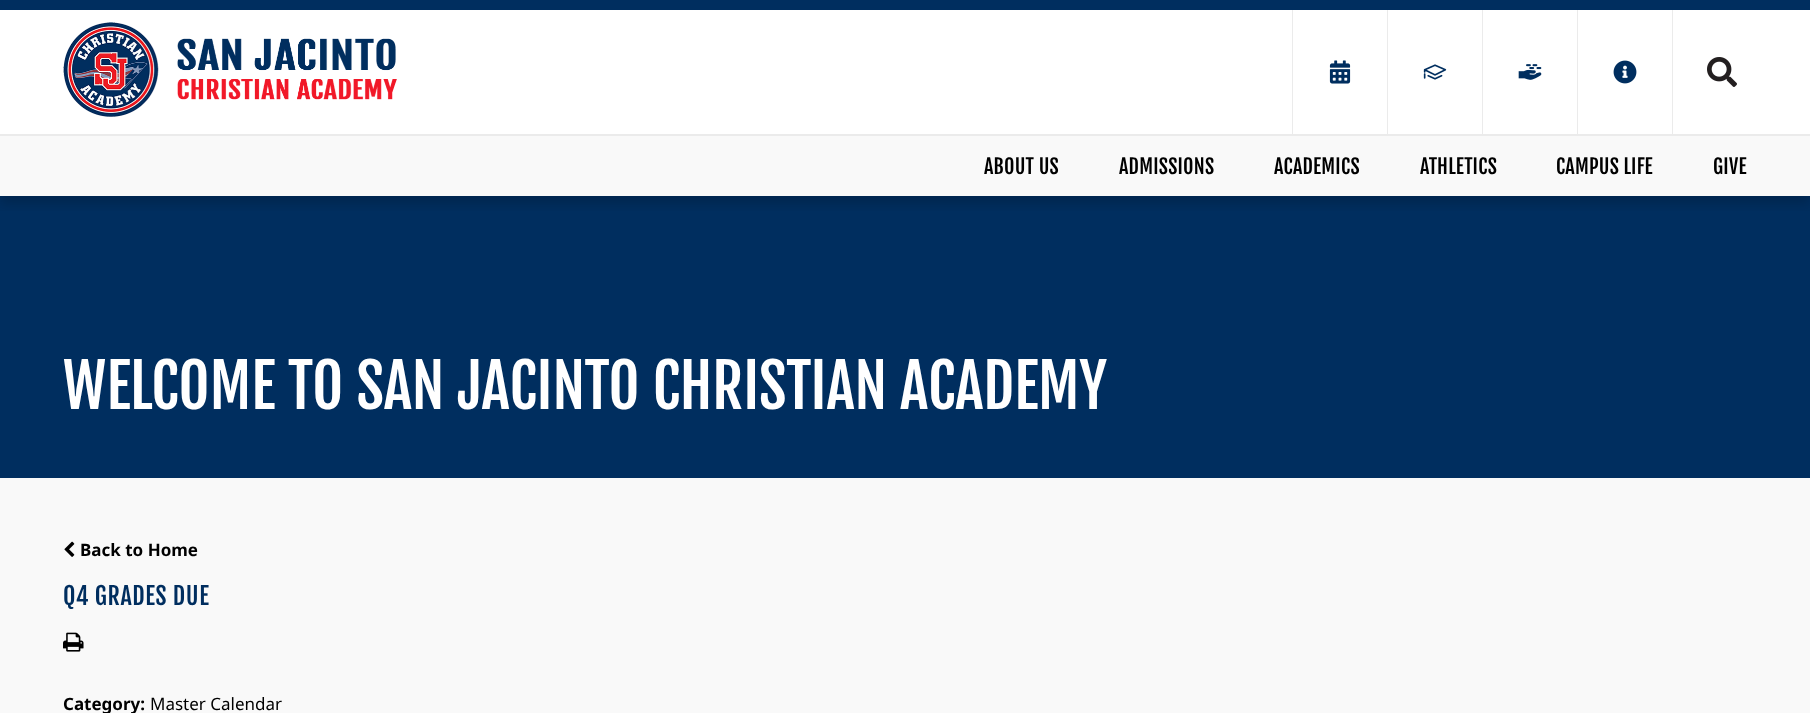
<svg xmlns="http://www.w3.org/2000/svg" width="1810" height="713">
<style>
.a{font:20px Fjalla One;letter-spacing:0.25px;fill:#000}
.b{font:60px Fjalla One;fill:#fff}
.c{font:bold 17px Noto Sans;fill:#000}
.d{font:24px Fjalla One;letter-spacing:0.6px;fill:#002e5f}
.e{font:17px Noto Sans;fill:#000}
</style>
<defs>
<clipPath id="clip1"><path d="M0 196h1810v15H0z"/></clipPath>
</defs>
<rect width="100%" height="100%" fill="#fff"/>
<path fill="#002e5f" d="M0 196h1810v282H0z"/>
<g clip-path="url(#clip1)">
<path fill="#00000029" filter="blur(6px)" d="M0 8h1810v196H0z"/>
</g>
<path fill="#002e5f" d="M0 0h1810v10H0z"/>
<path fill="#ebebeb" d="M0 134h1810v2H0z"/>
<image href="1.png" x="63" y="22" width="334" height="95"/>
<path fill="#ebebeb" d="M1387 10h1v124H1387z"/>
<path fill="#ebebeb" d="M1292 10h1v124H1292z"/>
<image href="2.png" x="1329" y="60" width="22" height="24"/>
<path fill="#ebebeb" d="M1482 10h1v124H1482z"/>
<image href="3.png" x="1423" y="64" width="24" height="16"/>
<path fill="#ebebeb" d="M1577 10h1v124H1577z"/>
<image href="4.png" x="1518" y="64" width="24" height="16"/>
<path fill="#ebebeb" d="M1672 10h1v124H1672z"/>
<image href="5.png" x="1613" y="60" width="24" height="24"/>
<image href="6.png" x="1707" y="57" width="30" height="30"/>
<path fill="#f9f9f9" d="M0 136h1810v60H0z"/>
<path fill="#f9f9f9" d="M0 478h1810v235H0z"/>
<image href="7.png" x="64" y="541" width="11" height="16"/>
<image href="8.png" x="63" y="632" width="21" height="20"/>
<text class="a" x="984" y="174">ABOUT US</text>
<text class="a" x="1119" y="174">ADMISSIONS</text>
<text class="a" x="1274" y="174">ACADEMICS</text>
<text class="a" x="1420" y="174">ATHLETICS</text>
<text class="a" x="1556" y="174">CAMPUS LIFE</text>
<text class="a" x="1713" y="174">GIVE</text>
<text class="b" x="63" y="409">WELCOME TO SAN JACINTO CHRISTIAN ACADEMY</text>
<text class="c" x="80" y="556">Back to Home</text>
<text class="d" x="63" y="605">Q4 GRADES DUE</text>
<text class="c" x="63" y="710">Category:</text>
<text class="e" x="150" y="710">Master Calendar</text>
</svg>
